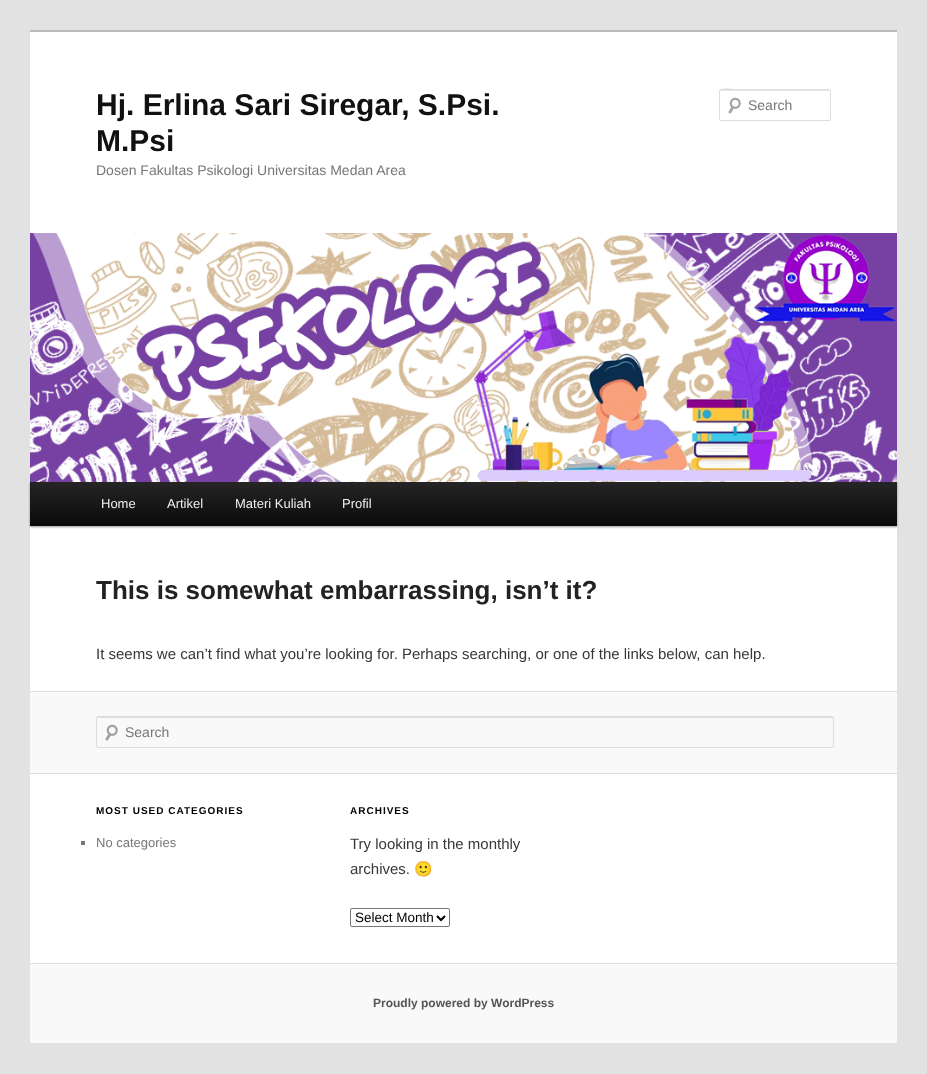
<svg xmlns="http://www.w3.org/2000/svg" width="927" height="1074">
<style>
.a{font:bold 30px Liberation Sans;fill:#111}
.b{font:14px Liberation Sans;fill:#777}
.c{font:13px Liberation Sans;fill:#eee}
.d{font:bold 26px Liberation Sans;fill:#222}
.e{font:15px Liberation Sans;fill:#373737}
.f{font:bold 10px Liberation Sans;letter-spacing:1px;fill:#000}
.g{font:13px Liberation Sans;fill:#777}
.h{font:15px Noto Color Emoji;fill:#373737}
.i{font:13.5px Liberation Sans;fill:#000}
.j{font:bold 12px Liberation Sans;fill:#555}
</style>
<defs>
<linearGradient id="g1" gradientUnits="userSpaceOnUse" x1="464" y1="482" x2="464" y2="526"><stop offset="0" stop-color="#252525"/><stop offset="1" stop-color="#0a0a0a"/></linearGradient>
</defs>
<rect width="100%" height="100%" fill="#e2e2e2"/>
<path fill="#fff" d="M30 32h867v931H30z"/>
<path fill="#bbb" d="M30 30h867v2H30z"/>
<image href="1.png" x="728" y="97" width="13" height="17"/>
<path fill="#e6e6e6" d="M721 91h109v1l-1-2h-90c-4 0-19-5-19 2c0-1 0-1 1-1z"/>
<rect fill="none" stroke="#ddd" x="719.5" y="89.5" width="111" height="31" rx="1.5"/>
<path fill="#00000066" filter="blur(1px)" d="M30 483h867v44H30z"/>
<image href="2.png" x="30" y="233" width="867" height="249"/>
<path fill="url(#g1)" d="M30 482h867v44H30z"/>
<path fill="#f9f9f9" d="M30 692h867v81H30z"/>
<path fill="#ddd" d="M30 691h867v1H30z"/>
<path fill="#ddd" d="M30 773h867v1H30z"/>
<image href="3.png" x="105" y="724" width="13" height="17"/>
<path fill="#e0e0e0" d="M98 717l-1 1h735l1 1c0-1 0-2-1-2z"/>
<rect fill="none" stroke="#ddd" x="96.5" y="716.5" width="737" height="31" rx="1.5"/>
<path fill="#777" d="M81 841h4v4H81z"/>
<rect fill="none" stroke="#767676" x="350.5" y="908.5" width="99" height="18" rx="1.5"/>
<path fill="none" stroke="#000" stroke-width="2" d="M437 916l4 4l4-4"/>
<path fill="#f9f9f9" d="M30 964h867v79H30z"/>
<path fill="#ddd" d="M30 963h867v1H30z"/>
<text class="a" x="96" y="115">Hj. Erlina Sari Siregar, S.Psi.</text>
<text class="a" x="96" y="151">M.Psi</text>
<text class="b" x="96" y="175">Dosen Fakultas Psikologi Universitas Medan Area</text>
<text class="b" x="748" y="110">Search</text>
<text class="c" x="101" y="508">Home</text>
<text class="c" x="167" y="508">Artikel</text>
<text class="c" x="235" y="508">Materi Kuliah</text>
<text class="c" x="342" y="508">Profil</text>
<text class="d" x="96" y="599">This is somewhat embarrassing, isn’t it?</text>
<text class="e" x="96" y="659">It seems we can’t find what you’re looking for. Perhaps searching, or one of the links below, can help.</text>
<text class="b" x="125" y="737">Search</text>
<text class="f" x="96" y="814">MOST USED CATEGORIES</text>
<text class="g" x="96" y="847">No categories</text>
<text class="f" x="350" y="814">ARCHIVES</text>
<text class="e" x="350" y="849">Try looking in the monthly</text>
<text class="e" x="350" y="874">archives.</text>
<text class="h" x="414" y="874">🙂</text>
<text class="i" x="355" y="922">Select Month</text>
<text class="j" x="373" y="1007">Proudly powered by WordPress</text>
</svg>
